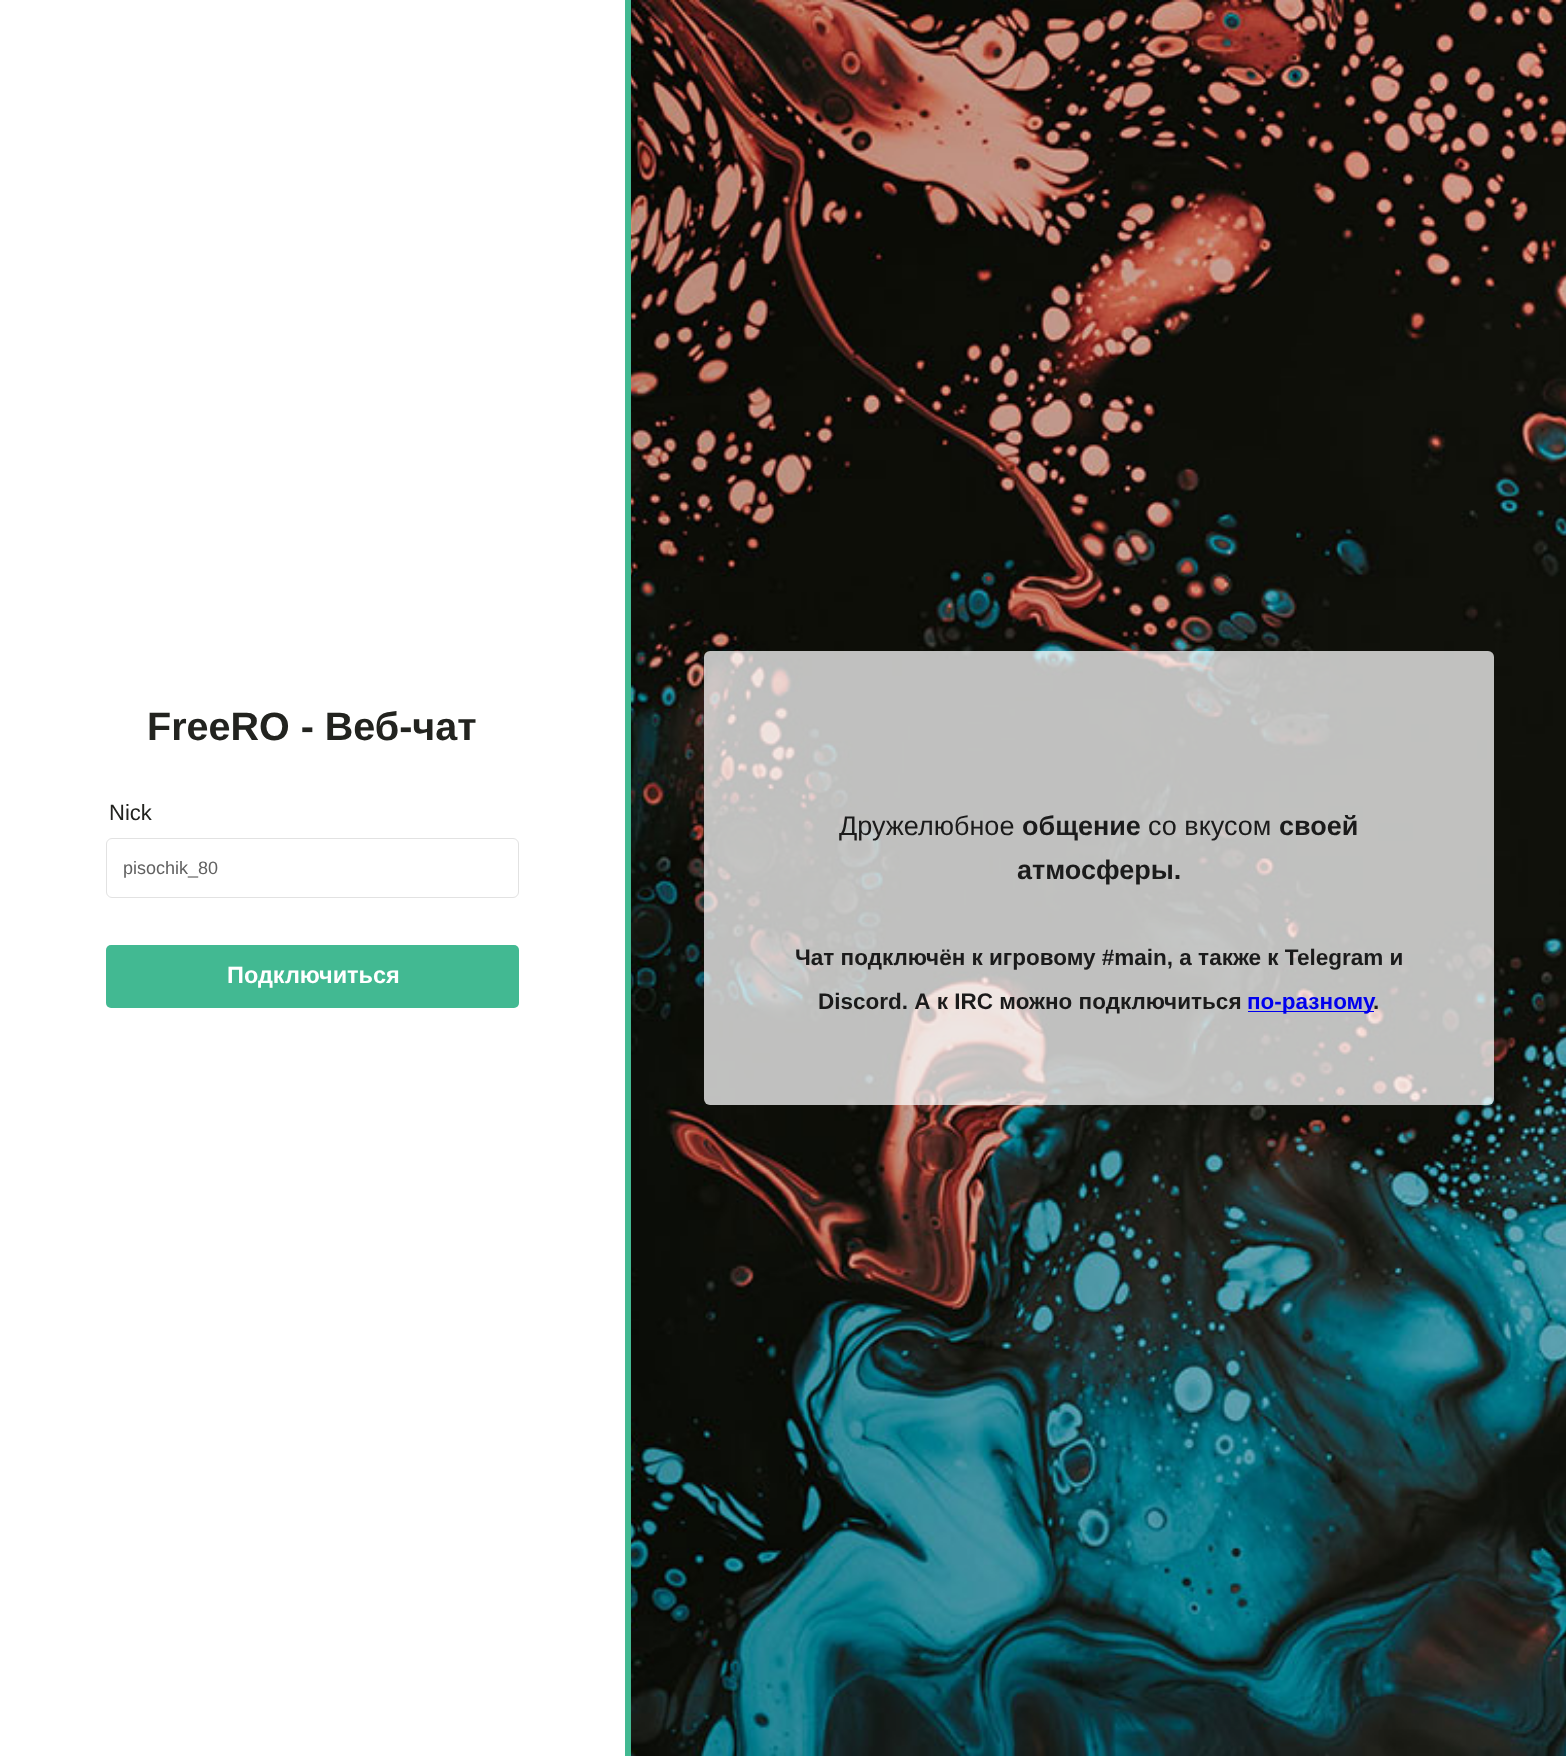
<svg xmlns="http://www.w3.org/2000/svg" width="1566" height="1756">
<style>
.a{font:bold 39.5px Liberation Sans;fill:#22231f}
.b{font:22px Liberation Sans;fill:#22231f}
.c{font:18px Liberation Sans;fill:#616161}
.d{font:bold 23.5px Liberation Sans;fill:#fff}
.e{font:27px Liberation Sans;fill:#1b1b1b}
.f{font:bold 27px Liberation Sans;fill:#1b1b1b}
.g{font:bold 22.5px Liberation Sans;fill:#1b1b1b}
.h{font:bold 22.5px Liberation Sans;fill:#00e}
</style>
<rect width="100%" height="100%" fill="#fff"/>
<rect fill="none" stroke="#e2e2e2" x="106.5" y="838.5" width="412" height="59" rx="5.5"/>
<rect fill="#42b992" x="106" y="945" width="413" height="63" rx="5"/>
<image href="1.png" x="631" y="0" width="935" height="1756"/>
<path fill="#42b992" d="M625 0h6v1756H625z"/>
<rect fill="#ffffffbd" x="704" y="651" width="790" height="454" rx="6"/>
<path fill="#00e" d="M1248 1011h126v1H1248z"/>
<text class="a" x="147" y="740">FreeRO - Веб-чат</text>
<text class="b" x="109" y="820">Nick</text>
<text class="c" x="123" y="874">pisochik_80</text>
<text class="d" x="227" y="983">Подключиться</text>
<text class="e" x="839" y="835">Дружелюбное</text>
<text class="f" x="1022" y="835">общение</text>
<text class="e" x="1148" y="835">со вкусом</text>
<text class="f" x="1279" y="835">своей</text>
<text class="f" x="1017" y="879">атмосферы.</text>
<text class="g" x="795" y="965">Чат подключён к игровому #main, а также к Telegram и</text>
<text class="g" x="818" y="1009">Discord. А к IRC можно подключиться</text>
<text class="h" x="1247" y="1009">по-разному</text>
<text class="g" x="1373" y="1009">.</text>
</svg>
